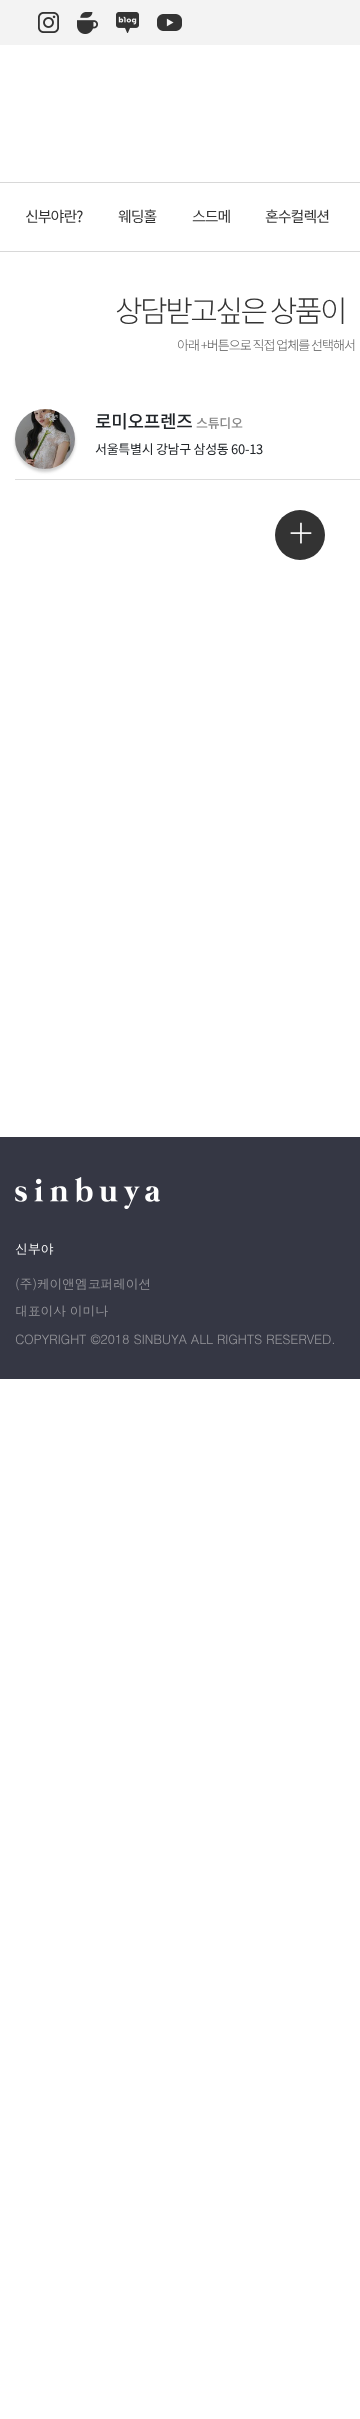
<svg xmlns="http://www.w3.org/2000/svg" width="360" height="2419">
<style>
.a{font:15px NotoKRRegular;letter-spacing:-1px;fill:#333}
.b{font:300 30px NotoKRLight;letter-spacing:-2.5px;fill:#333}
.c{font:300 13px NotoKRLight;letter-spacing:-1px;fill:#555}
.d{font:500 18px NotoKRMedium;letter-spacing:-0.3px;fill:#212529}
.e{font:500 13px NotoKRMedium;letter-spacing:-0.3px;fill:#888}
.f{font:13px NotoKRRegular;letter-spacing:-0.3px;fill:#212529}
.g{font:13px Dotum;letter-spacing:-0.3px;fill:#fff}
.h{font:13px Dotum;letter-spacing:-0.3px;fill:#96969b}
</style>
<rect width="100%" height="100%" fill="#fff"/>
<path fill="#f3f3f3" d="M0 0h360v45H0z"/>
<image href="1.png" x="38" y="12" width="21" height="21"/>
<image href="2.png" x="77" y="12" width="21" height="22"/>
<image href="3.png" x="116" y="12" width="23" height="21"/>
<image href="4.png" x="157" y="14" width="25" height="17"/>
<path fill="#d8d8d8" d="M0 182h360v1H0z"/>
<path fill="#d8d8d8" d="M0 251h360v1H0z"/>
<path fill="#ddd" d="M15 479h345v1H15z"/>
<rect fill="#ccc" filter="blur(1.5px)" x="15" y="412" width="60" height="60" rx="30"/>
<image href="5.png" x="15" y="409" width="60" height="60"/>
<circle fill="#333" cx="300" cy="535" r="25"/>
<image href="6.png" x="290" y="522" width="22" height="22"/>
<path fill="#353744" d="M0 1137h360v242H0z"/>
<image href="7.png" x="15" y="1177" width="145" height="32"/>
<text class="a" x="25" y="222">신부야란?</text>
<text class="a" x="118" y="222">웨딩홀</text>
<text class="a" x="192" y="222">스드메</text>
<text class="a" x="265" y="222">혼수컬렉션</text>
<text class="b" x="115" y="322">상담받고싶은 상품이</text>
<text class="c" x="177" y="350">아래 +버튼으로 직접 업체를 선택해서</text>
<text class="d" x="95" y="428">로미오프렌즈</text>
<text class="e" x="196" y="428">스튜디오</text>
<text class="f" x="95" y="454">서울특별시 강남구 삼성동 60-13</text>
<text class="g" x="15" y="1254">신부야</text>
<text class="h" x="15" y="1289">(주)케이앤엠코퍼레이션</text>
<text class="h" x="15" y="1316">대표이사 이미나</text>
<text class="h" x="15" y="1344">COPYRIGHT ©2018 SINBUYA ALL RIGHTS RESERVED.</text>
</svg>
